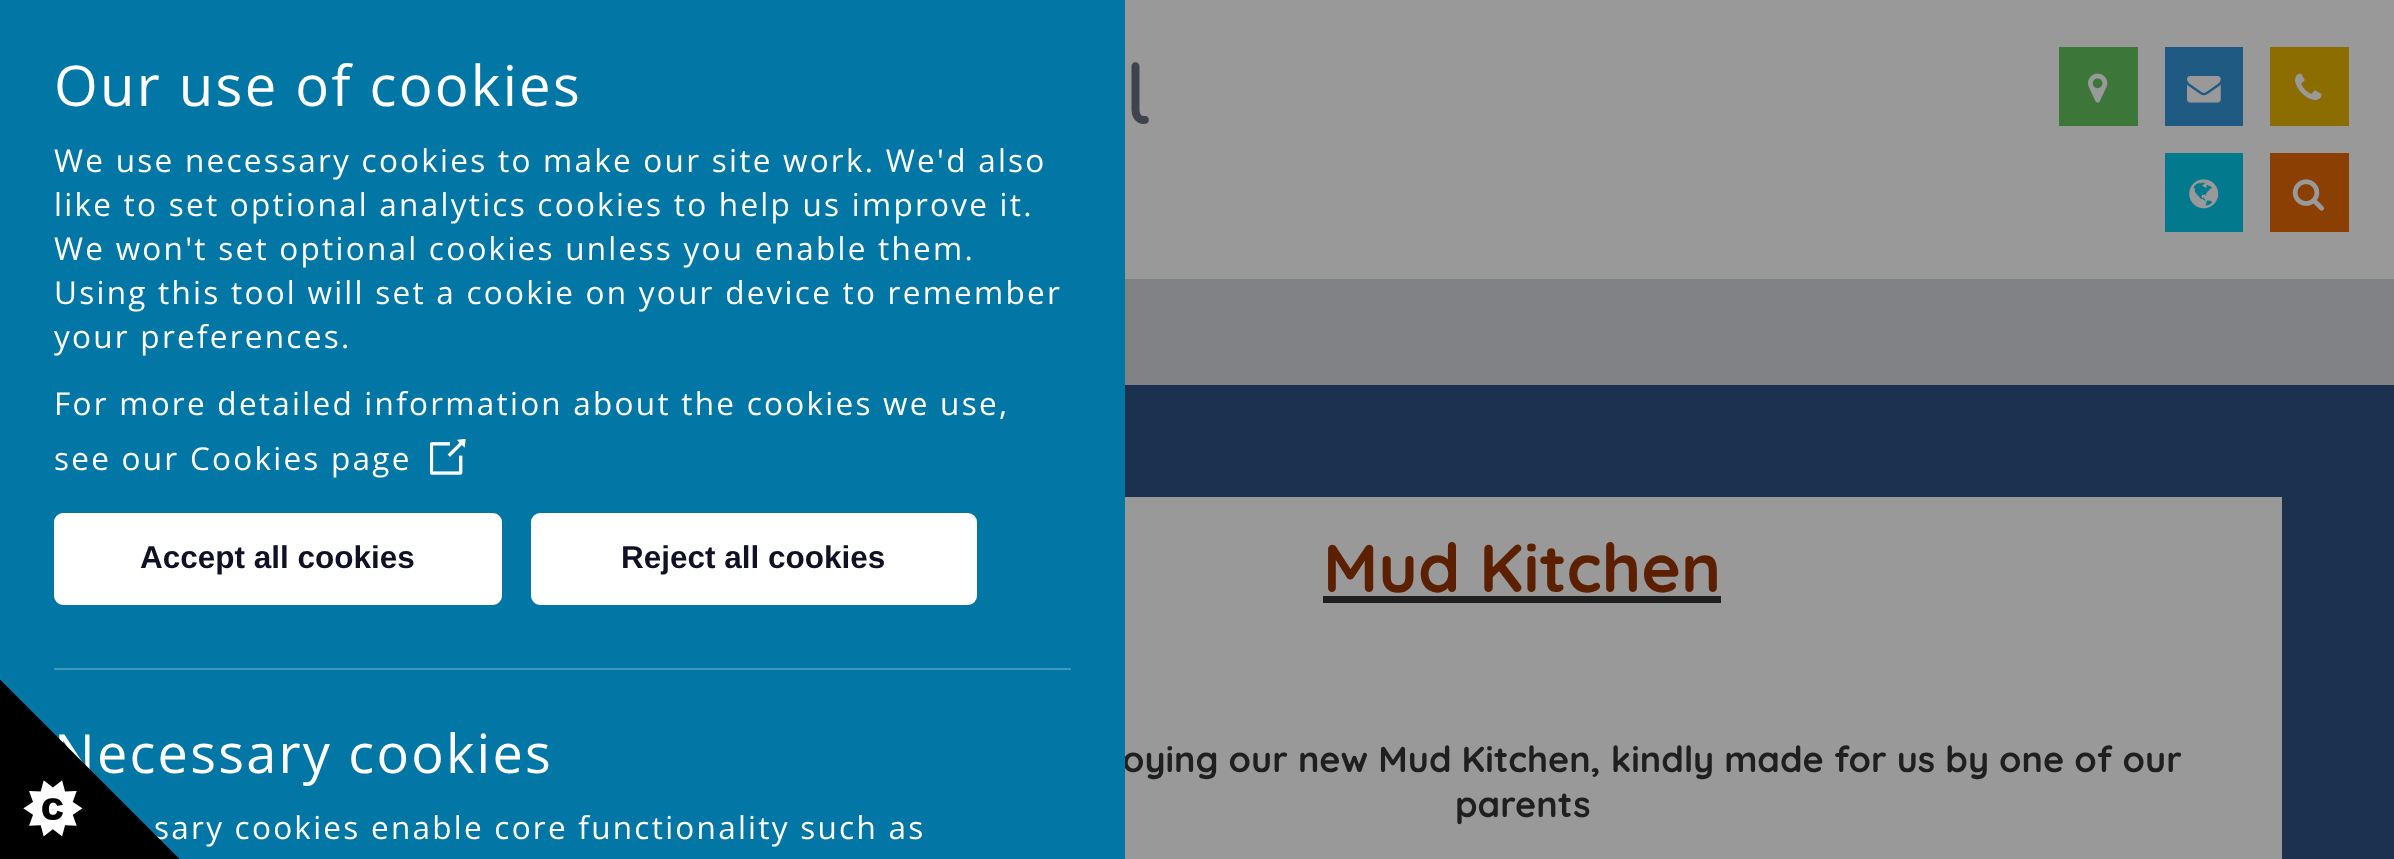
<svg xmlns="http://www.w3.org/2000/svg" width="2394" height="859">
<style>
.a{font:bold 79px Comfortaa;fill:#3f434d}
.b{font:bold 67.5px Quicksand;fill:#5c1f00}
.c{font:bold 36px Quicksand;fill:#1f1f1f}
.d{font:31.5px Open Sans;letter-spacing:2.25px;fill:#fff}
.e{font:54px Open Sans;letter-spacing:2.25px;fill:#fff}
.f{font:bold 31.5px Liberation Sans;fill:#111125}
.g{font:56.25px Open Sans;letter-spacing:2.25px;fill:#fff}
</style>
<rect width="100%" height="100%" fill="#818285"/>
<path fill="#999" d="M1125 0h1269v279H1125z"/>
<path fill="#3c7739" d="M2059 47h79v79H2059z"/>
<image href="3.png" x="2088" y="73" width="20" height="30"/>
<path fill="#1f5a83" d="M2165 47h78v79H2165z"/>
<image href="4.png" x="2187" y="76" width="34" height="27"/>
<path fill="#8c6d02" d="M2270 47h79v79H2270z"/>
<image href="5.png" x="2295" y="73" width="27" height="28"/>
<path fill="#02798c" d="M2165 153h78v79H2165z"/>
<image href="6.png" x="2189" y="179" width="30" height="30"/>
<path fill="#8c3f02" d="M2270 153h79v79H2270z"/>
<image href="7.png" x="2292" y="179" width="33" height="32"/>
<path fill="#1c314f" d="M1125 385h1269v474H1125z"/>
<path fill="#999" d="M1125 497h1157v362H1125z"/>
<path fill="#1f1f1f" d="M1323 596h398v7H1323z"/>
<text class="a" x="1126" y="124">l</text>
<text class="b" x="1323" y="592">Mud Kitchen</text>
<text class="c" x="1122" y="772">oying our new Mud Kitchen, kindly made for us by one of our</text>
<path fill="#0276a5" d="M0 0h1125v859H0z"/>
<text class="d" x="154" y="839">sary cookies enable core functionality such as</text>
<text class="e" x="54" y="773">Necessary cookies</text>
<image href="2.png" x="0" y="680" width="180" height="179"/>
<path fill="#4198bc" d="M54 668h1017v2H54z"/>
<image href="1.png" x="430" y="439" width="36" height="36"/>
<rect fill="#fff" stroke="#fff" stroke-width="5" x="533.5" y="515.5" width="441" height="87" rx="6.5"/>
<text class="f" x="621" y="568">Reject all cookies</text>
<rect fill="#fff" stroke="#fff" stroke-width="5" x="56.5" y="515.5" width="443" height="87" rx="6.5"/>
<text class="f" x="140" y="568">Accept all cookies</text>
<text class="d" x="54" y="470">see our Cookies page</text>
<text class="d" x="54" y="415">For more detailed information about the cookies we use,</text>
<text class="d" x="54" y="348">your preferences.</text>
<text class="d" x="54" y="304">Using this tool will set a cookie on your device to remember</text>
<text class="d" x="54" y="260">We won't set optional cookies unless you enable them.</text>
<text class="d" x="54" y="216">like to set optional analytics cookies to help us improve it.</text>
<text class="d" x="54" y="172">We use necessary cookies to make our site work. We'd also</text>
<text class="g" x="54" y="106">Our use of cookies</text>
<text class="c" x="1455" y="817">parents</text>
</svg>
